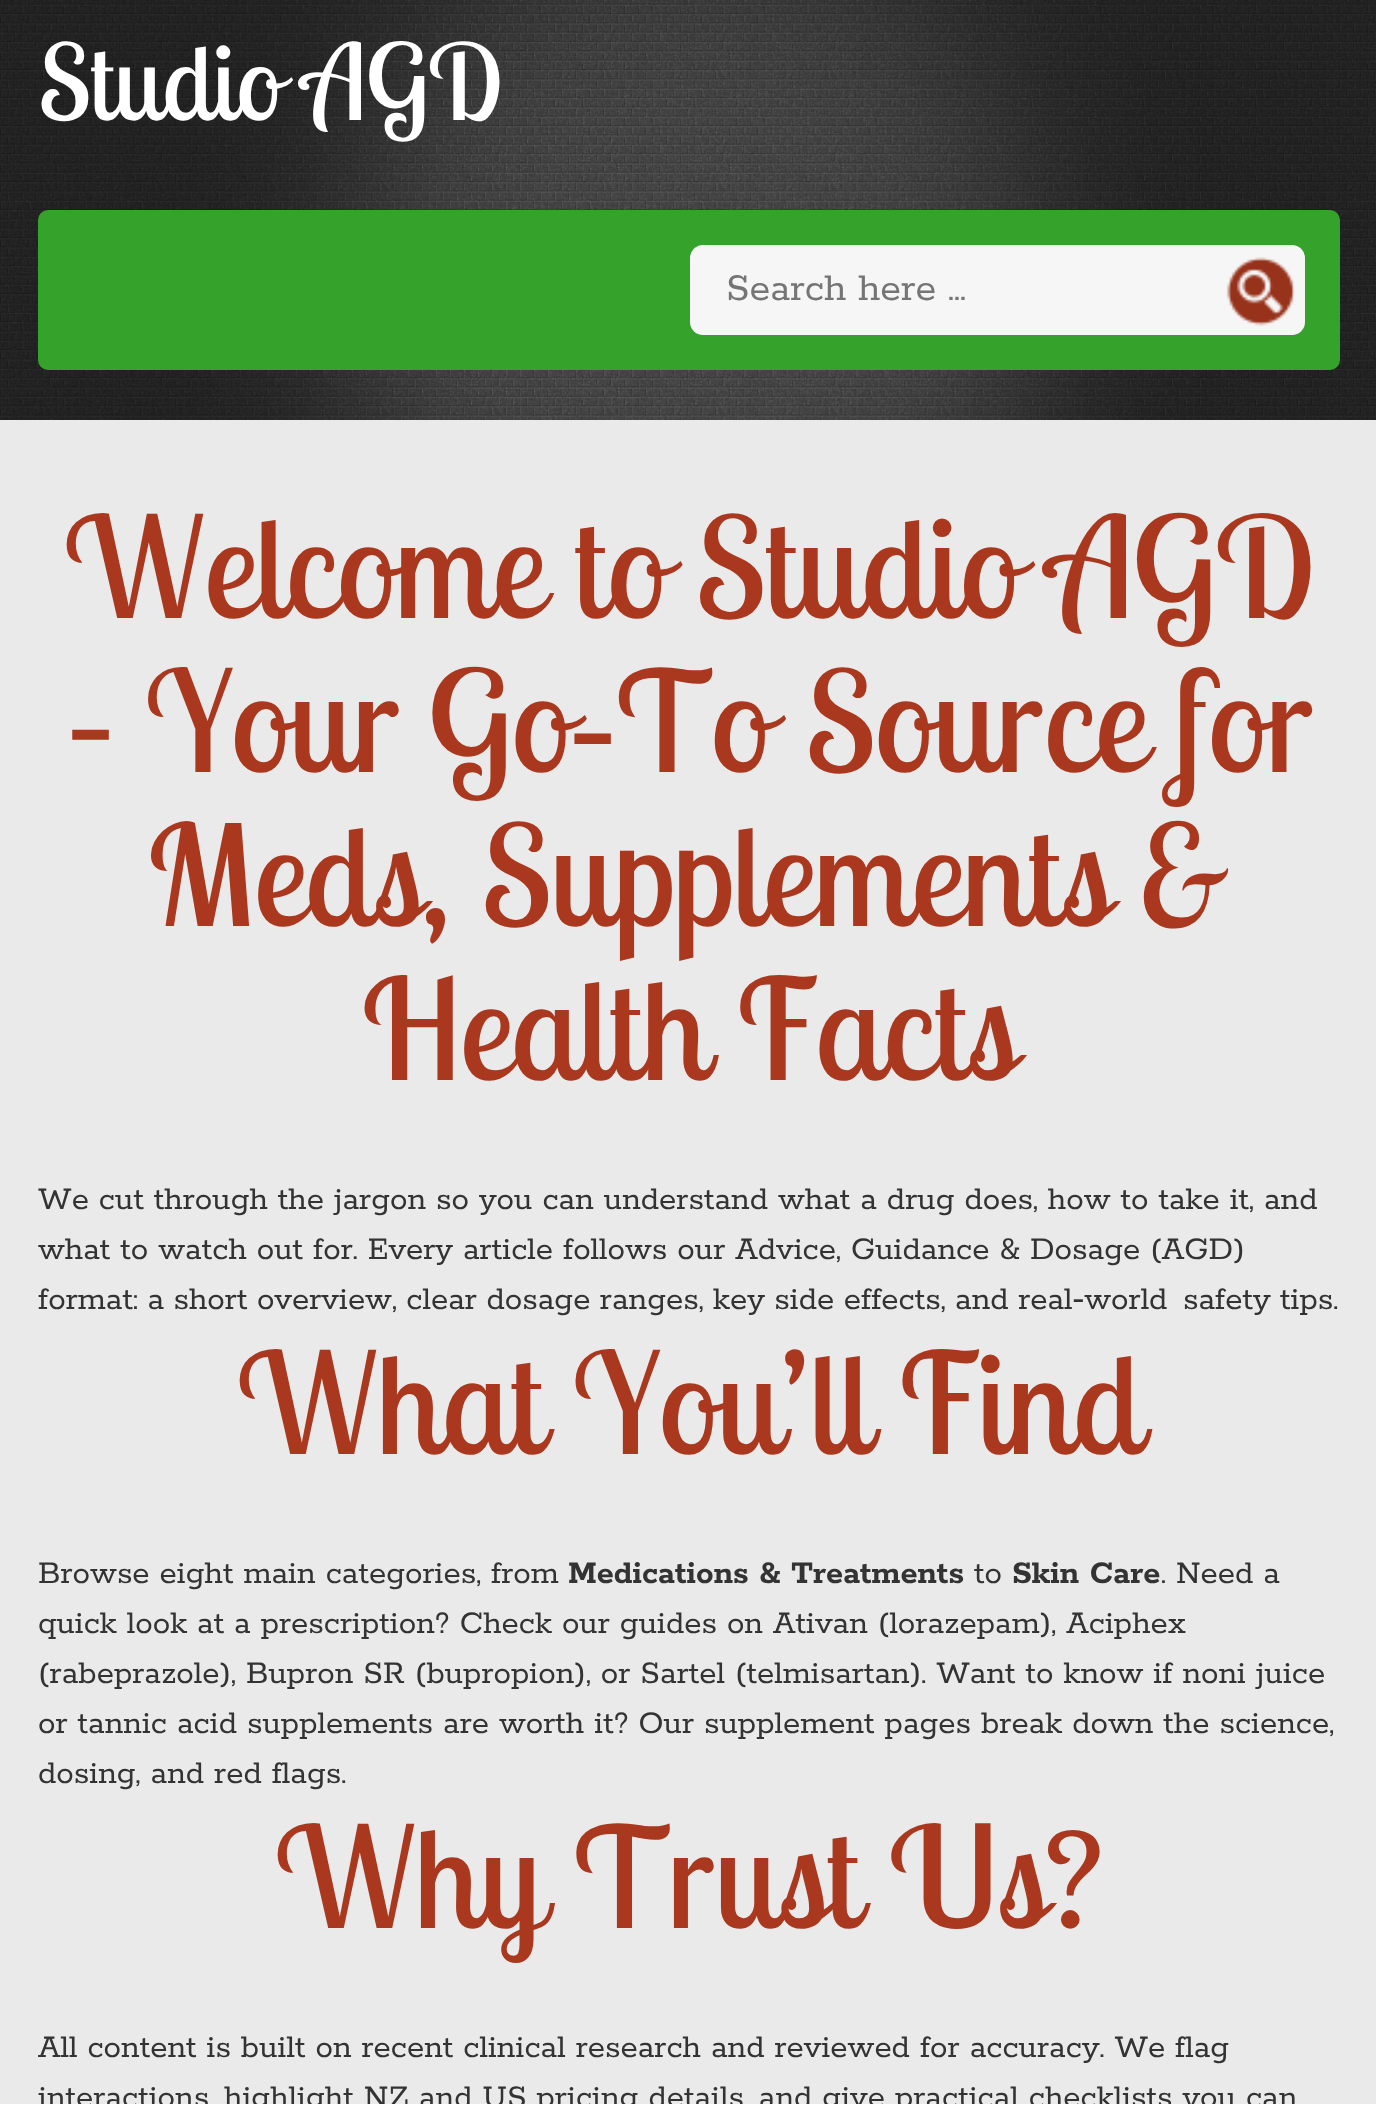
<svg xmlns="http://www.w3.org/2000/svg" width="1376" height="2104">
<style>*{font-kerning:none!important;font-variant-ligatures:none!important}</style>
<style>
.a{font:105px Lobster Two;fill:#fff}
.b{font:42px Rokkitt;fill:#757575}
.c{font:140px Lobster Two;fill:#aa381e}
.d{font:35px Rokkitt;fill:#333}
.e{font:bold 35px Rokkitt;fill:#333}
</style>
<rect width="100%" height="100%" fill="#eaeaea"/>
<image href="1.png" x="0" y="0" width="1376" height="420"/>
<rect fill="#35a22c" x="38" y="210" width="1302" height="160" rx="10"/>
<rect fill="#f6f6f6" x="690" y="245" width="615" height="90" rx="13"/>
<image href="2.png" x="1226" y="257" width="69" height="69"/>
<text class="a" x="38" y="120">Studio AGD</text>
<text class="b" x="726" y="300">Search here ...</text>
<text class="c" x="64" y="618">Welcome to Studio AGD</text>
<text class="c" x="64" y="772" word-spacing="-2">– Your Go‑To</text>
<text class="c" x="805" y="772" word-spacing="-2">Source for</text>
<text class="c" x="148" y="926">Meds, Supplements &amp;</text>
<text class="c" x="362" y="1080">Health Facts</text>
<text class="d" x="38" y="1209">We cut through the jargon so you can understand what a drug does, how to take it, and</text>
<text class="d" x="38" y="1259">what to watch out for. Every article follows our Advice, Guidance &amp; Dosage (AGD)</text>
<text class="d" x="38" y="1309" word-spacing="-0.5">format: a short overview, clear dosage ranges, key side effects, and real‑world</text>
<text class="d" x="1183" y="1309" word-spacing="-0.5">safety tips.</text>
<text class="c" x="237" y="1454">What You’ll Find</text>
<text class="d" x="38" y="1583">Browse eight main categories, from</text>
<text class="e" x="568" y="1583">Medications &amp; Treatments</text>
<text class="d" x="974" y="1583">to</text>
<text class="e" x="1012" y="1583">Skin Care</text>
<text class="d" x="1161" y="1583">. Need a</text>
<text class="d" x="38" y="1633">quick look at a prescription? Check our guides on Ativan (lorazepam), Aciphex</text>
<text class="d" x="38" y="1683">(rabeprazole), Bupron SR (bupropion), or Sartel (telmisartan). Want to know if noni juice</text>
<text class="d" x="38" y="1733">or tannic acid supplements are worth it? Our supplement pages break down the science,</text>
<text class="d" x="38" y="1783">dosing, and red flags.</text>
<text class="c" x="275" y="1928">Why Trust</text>
<text class="c" x="889" y="1928">Us?</text>
<text class="d" x="38" y="2057">All content is built on recent clinical research and reviewed for accuracy. We</text>
<text class="d" x="1175" y="2057">flag</text>
<text class="d" x="38" y="2107">interactions, highlight NZ and US pricing details, and give practical checklists you can</text>
</svg>
